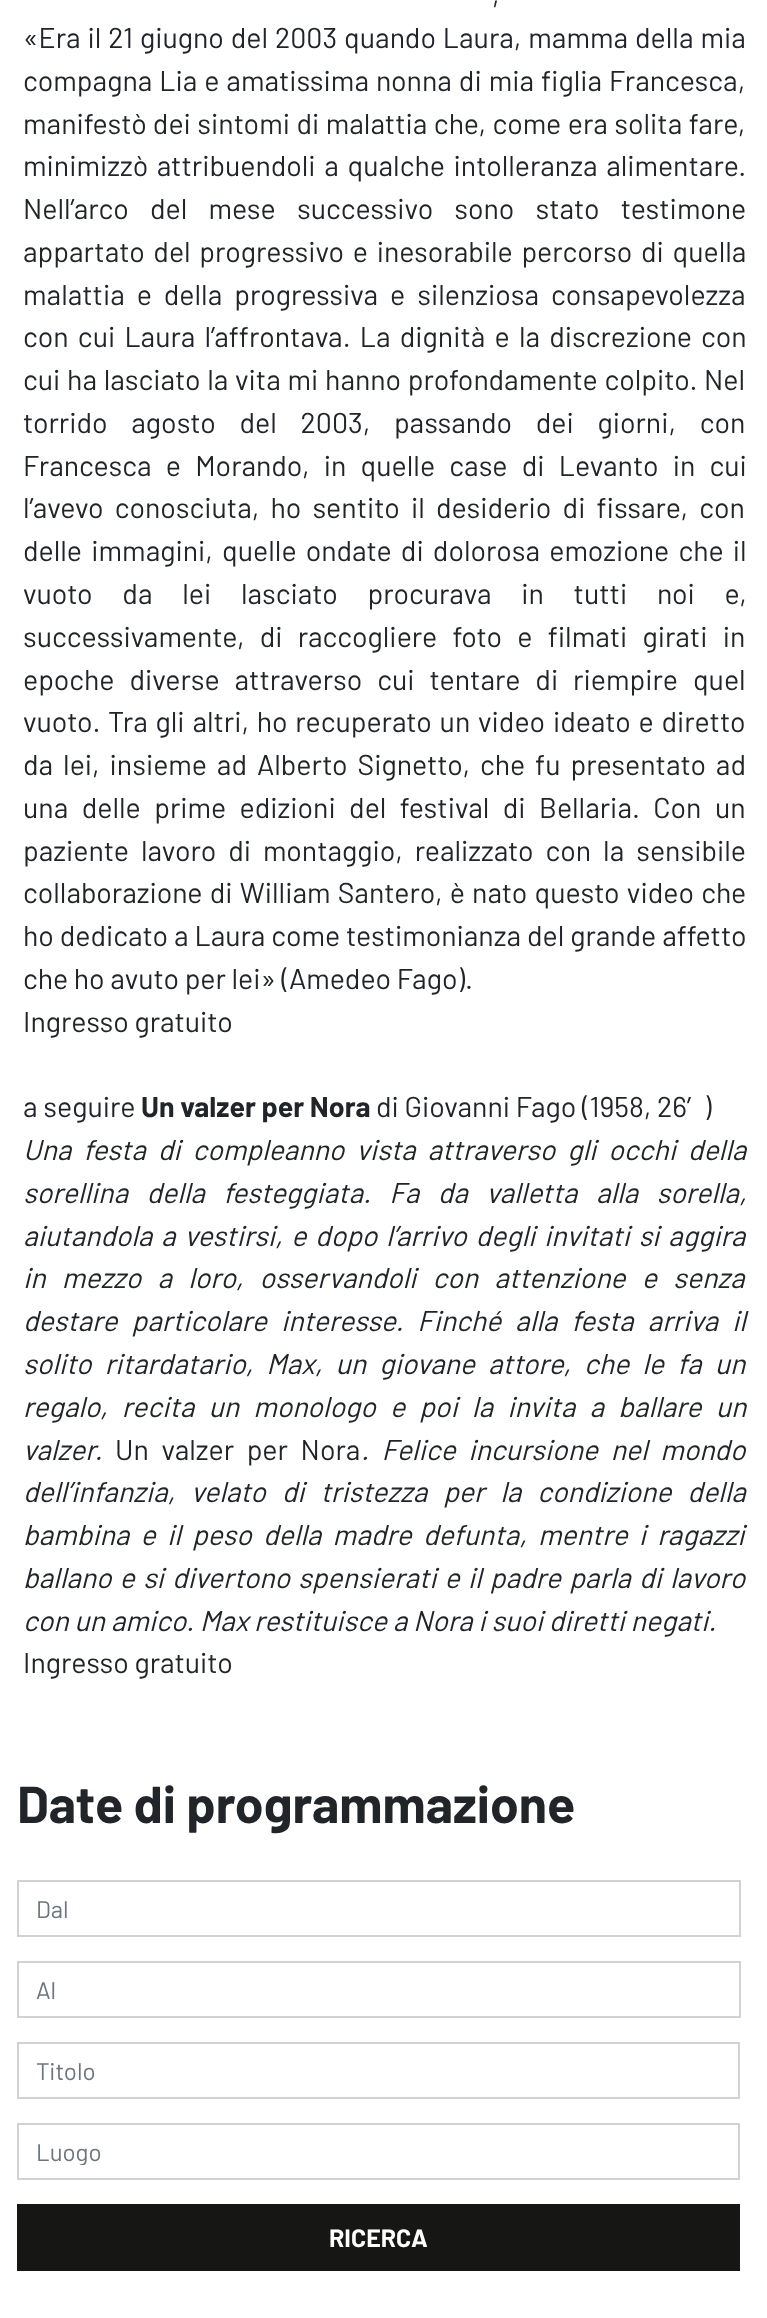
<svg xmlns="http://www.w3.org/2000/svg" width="767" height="2318">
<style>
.a{font:28.5px Barlow;fill:#212529}
.b{font:bold 28.5px Barlow;fill:#212529}
.c{font:italic 28.5px Barlow;fill:#212529}
.d{font:bold 51.75px Barlow;fill:#212529}
.e{font:24px Barlow;fill:#6c757d}
.f{font:bold 25px Barlow;fill:#fff}
</style>
<defs>
<clipPath id="clip1"><path d="M36 2136h684v29H36z"/></clipPath>
</defs>
<rect width="100%" height="100%" fill="#fff"/>
<path fill="none" stroke="#d2d2d2" stroke-width="2" d="M18 1881h722v55H18z"/>
<path fill="none" stroke="#d2d2d2" stroke-width="2" d="M18 1962h722v55H18z"/>
<path fill="none" stroke="#d2d2d2" stroke-width="2" d="M18 2043h721v55H18z"/>
<path fill="none" stroke="#d2d2d2" stroke-width="2" d="M18 2124h721v55H18z"/>
<path fill="#161615" d="M17 2204h723v67H17z"/>
<text class="a" x="492" y="5">,</text>
<text class="a" x="23" y="48" word-spacing="1.25">«Era il 21 giugno del 2003 quando Laura, mamma della mia</text>
<text class="a" x="23" y="91" word-spacing="1.25">compagna Lia e amatissima nonna di mia figlia Francesca,</text>
<text class="a" x="23" y="134" word-spacing="0.75">manifestò dei sintomi di malattia che, come era solita fare,</text>
<text class="a" x="23" y="176" word-spacing="3">minimizzò attribuendoli a qualche intolleranza alimentare.</text>
<text class="a" x="23" y="219" word-spacing="15.5">Nell’arco del mese successivo sono stato testimone</text>
<text class="a" x="23" y="262" word-spacing="3">appartato del progressivo e inesorabile percorso di quella</text>
<text class="a" x="23" y="305" word-spacing="6.25">malattia e della progressiva e silenziosa consapevolezza</text>
<text class="a" x="23" y="347" word-spacing="3.5">con cui Laura l’affrontava. La dignità e la discrezione con</text>
<text class="a" x="23" y="390" word-spacing="1">cui ha lasciato la vita mi hanno profondamente colpito. Nel</text>
<text class="a" x="23" y="433" word-spacing="18">torrido agosto del 2003, passando dei giorni, con</text>
<text class="a" x="23" y="476" word-spacing="8.5">Francesca e Morando, in quelle case di Levanto in cui</text>
<text class="a" x="23" y="518" word-spacing="5.5">l’avevo conosciuta, ho sentito il desiderio di fissare, con</text>
<text class="a" x="23" y="561" word-spacing="3.5">delle immagini, quelle ondate di dolorosa emozione che il</text>
<text class="a" x="23" y="604" word-spacing="24">vuoto da lei lasciato procurava in tutti noi e,</text>
<text class="a" x="23" y="647" word-spacing="9.5">successivamente, di raccogliere foto e filmati girati in</text>
<text class="a" x="23" y="690" word-spacing="9.25">epoche diverse attraverso cui tentare di riempire quel</text>
<text class="a" x="23" y="732" word-spacing="2.1">vuoto. Tra gli altri, ho recuperato un video ideato e diretto</text>
<text class="a" x="23" y="775" word-spacing="4.25">da lei, insieme ad Alberto Signetto, che fu presentato ad</text>
<text class="a" x="23" y="818" word-spacing="7.75">una delle prime edizioni del festival di Bellaria. Con un</text>
<text class="a" x="23" y="861" word-spacing="6.25">paziente lavoro di montaggio, realizzato con la sensibile</text>
<text class="a" x="23" y="903" word-spacing="1.5">collaborazione di William Santero, è nato questo video che</text>
<text class="a" x="23" y="946" word-spacing="0.25">ho dedicato a Laura come testimonianza del grande affetto</text>
<text class="a" x="23" y="989">che ho avuto per lei» (Amedeo Fago).</text>
<text class="a" x="23" y="1032">Ingresso gratuito</text>
<text class="a" x="23" y="1117">a seguire</text>
<text class="b" x="141" y="1117">Un valzer per Nora</text>
<text class="a" x="376" y="1117">di Giovanni Fago (1958, 26′)</text>
<text class="c" x="23" y="1160" word-spacing="6.25">Una festa di compleanno vista attraverso gli occhi della</text>
<text class="c" x="23" y="1203" word-spacing="12.75">sorellina della festeggiata. Fa da valletta alla sorella,</text>
<text class="c" x="23" y="1246" word-spacing="3">aiutandola a vestirsi, e dopo l’arrivo degli invitati si aggira</text>
<text class="c" x="23" y="1288" word-spacing="10.5">in mezzo a loro, osservandoli con attenzione e senza</text>
<text class="c" x="23" y="1331" word-spacing="8.25">destare particolare interesse. Finché alla festa arriva il</text>
<text class="c" x="23" y="1374" word-spacing="7.5">solito ritardatario, Max, un giovane attore, che le fa un</text>
<text class="c" x="23" y="1417" word-spacing="8.5">regalo, recita un monologo e poi la invita a ballare un</text>
<text class="c" x="23" y="1460">valzer.</text>
<text class="a" x="115" y="1460" word-spacing="7">Un valzer per Nora</text>
<text class="c" x="361" y="1460" word-spacing="7">. Felice incursione nel mondo</text>
<text class="c" x="23" y="1502" word-spacing="10.25">dell’infanzia, velato di tristezza per la condizione della</text>
<text class="c" x="23" y="1545" word-spacing="5.5">bambina e il peso della madre defunta, mentre i ragazzi</text>
<text class="c" x="23" y="1588" word-spacing="2.4">ballano e si divertono spensierati e il padre parla di lavoro</text>
<text class="c" x="23" y="1631">con un amico. Max restituisce a Nora i suoi diretti negati.</text>
<text class="a" x="23" y="1673">Ingresso gratuito</text>
<text class="d" x="17" y="1823">Date di programmazione</text>
<text class="e" x="36" y="1918">Dal</text>
<text class="e" x="36" y="1999">Al</text>
<text class="e" x="36" y="2080">Titolo</text>
<g clip-path="url(#clip1)">
<text class="e" x="36" y="2161">Luogo</text>
</g>
<text class="f" x="329" y="2247">RICERCA</text>
</svg>
